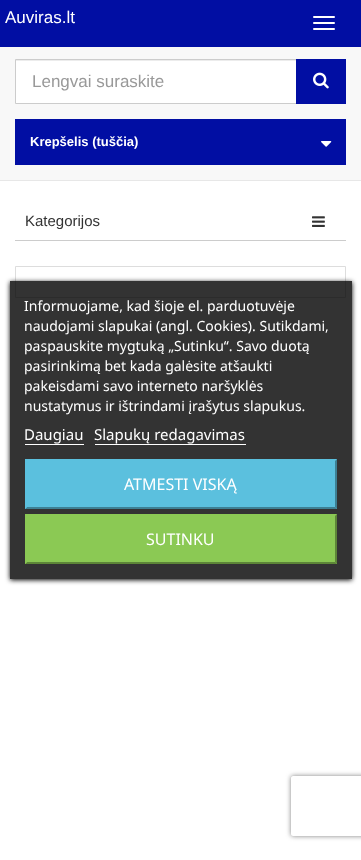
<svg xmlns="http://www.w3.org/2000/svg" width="361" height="860">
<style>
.a{font:17px Liberation Sans;fill:#fff}
.b{font:17px Liberation Sans;fill:#999}
.c{font:bold 13px Liberation Sans;fill:#fff}
.d{font:15px Liberation Sans;fill:#333}
.e{font:14px Noto Sans;fill:#fff}
.f{font:15px Noto Sans;fill:#fff}
.g{font:16px Noto Sans;fill:#fff}
</style>
<defs>
<clipPath id="clip1"><path d="M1 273h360v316h-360zm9 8h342v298h-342z" clip-rule="evenodd"/></clipPath>
<clipPath id="clip2"><path d="M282 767h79v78h-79zm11 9h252c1 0 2 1 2 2v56c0 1-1 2-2 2h-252c-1 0-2-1-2-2v-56c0-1 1-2 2-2z" clip-rule="evenodd"/></clipPath>
</defs>
<rect width="100%" height="100%" fill="#fff"/>
<path fill="#010ea3" d="M0 0h361v47H0z"/>
<rect fill="#fff" x="313" y="16" width="22" height="2" rx="1"/>
<rect fill="#fff" x="313" y="22" width="22" height="2" rx="1"/>
<rect fill="#fff" x="313" y="28" width="22" height="2" rx="1"/>
<path fill="#f8f8f8" d="M0 47h361v133H0z"/>
<path fill="#e7e7e7" d="M0 180h361v1H0z"/>
<path fill="#fff" d="M16 61h280v42H16z"/>
<path fill="#ececec" d="M16 60h280v1H16z"/>
<path fill="none" stroke="#ccc" d="M15.5 59.5h281v44H15.5z"/>
<path fill="#010ea3" d="M296 59h50v45H296z"/>
<image href="1.png" x="313" y="72" width="16" height="17"/>
<path fill="#010ea3" d="M15 119h331v46H15z"/>
<image href="2.png" x="321" y="141" width="11" height="6"/>
<path fill="#ccc" d="M15 240h331v1H15z"/>
<image href="3.png" x="312" y="216" width="13" height="11"/>
<path fill="none" stroke="#ddd" d="M15.5 266.5h330v31H15.5z"/>
<g clip-path="url(#clip1)">
<path fill="#000" filter="blur(2.5px)" d="M10 282h342v298H10z"/>
</g>
<path fill="#000000cc" d="M10 281h342v298H10z"/>
<path fill="#fff" d="M25 444h59v1H25z"/>
<path fill="#fff" d="M95 444h151v1H95z"/>
<path fill="#5bc0de" d="M25 459h312v50H25z"/>
<path fill="#3d8094" d="M337 459v50l-2-2v-46z"/>
<path fill="#3d8094" d="M337 509h-312l2-2h308z"/>
<path fill="#5bc0de" d="M25 509v-50l2 2v46z"/>
<path fill="#8bc954" d="M25 514h312v50H25z"/>
<path fill="#5d8638" d="M337 514v50l-2-2v-46z"/>
<path fill="#5d8638" d="M337 564h-312l2-2h308z"/>
<path fill="#8bc954" d="M25 564v-50l2 2v46z"/>
<g clip-path="url(#clip2)">
<rect fill="#808080" filter="blur(2.5px)" x="291" y="776" width="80" height="60" rx="2"/>
</g>
<text class="a" x="5" y="23">Auviras.lt</text>
<text class="b" x="32" y="87">Lengvai suraskite</text>
<text class="c" x="30" y="146">Krepšelis (tuščia)</text>
<text class="d" x="25" y="226">Kategorijos</text>
<text class="e" x="24" y="311">Informuojame, kad šioje el. parduotuvėje</text>
<text class="e" x="24" y="331">naudojami slapukai (angl. Cookies). Sutikdami,</text>
<text class="e" x="24" y="351">paspauskite mygtuką „Sutinku“. Savo duotą</text>
<text class="e" x="24" y="371">pasirinkimą bet kada galėsite atšaukti</text>
<text class="e" x="24" y="391">pakeisdami savo interneto naršyklės</text>
<text class="e" x="24" y="411">nustatymus ir ištrindami įrašytus slapukus.</text>
<text class="f" x="24" y="440">Daugiau</text>
<text class="f" x="94" y="440">Slapukų redagavimas</text>
<text class="g" x="124" y="490">ATMESTI VISKĄ</text>
<text class="g" x="146" y="545">SUTINKU</text>
</svg>
